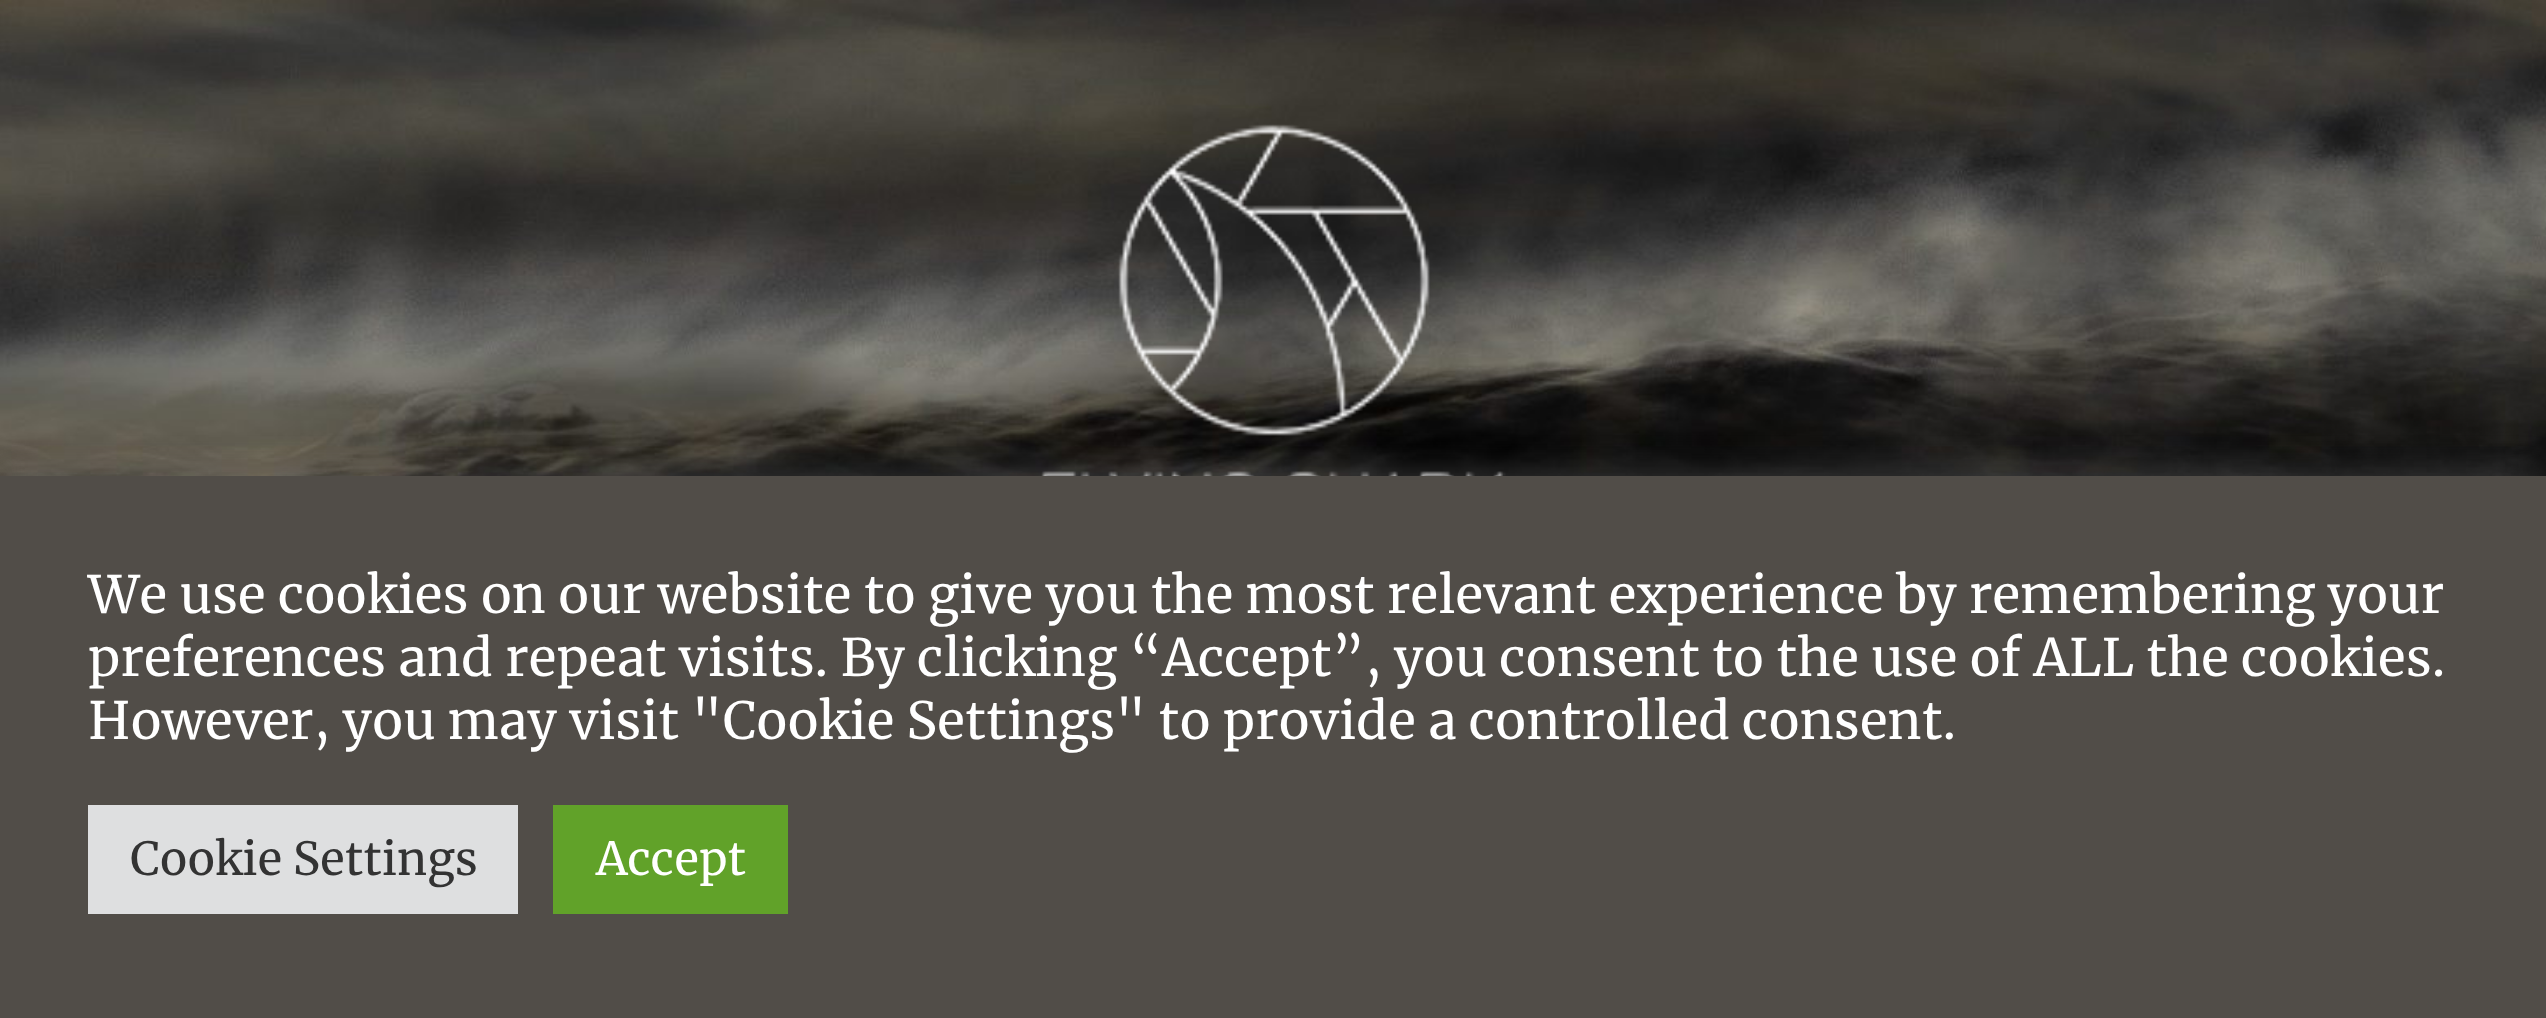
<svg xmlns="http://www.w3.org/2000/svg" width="2546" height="1018">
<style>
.a{font:51.35px Merriweather;fill:#fff}
.b{font:45.5px Merriweather;fill:#333}
.c{font:45.5px Merriweather;fill:#fff}
</style>
<rect width="100%" height="100%" fill="#fff"/>
<image href="1.png" x="0" y="0" width="2546" height="476"/>
<image href="2.png" x="1041" y="124" width="465" height="352"/>
<path fill="#acabab4d" filter="blur(17.5px)" d="M0 473h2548v542H0z"/>
<path fill="#514d48" d="M0 476h2546v542H0z"/>
<path fill="#dedfe0" d="M88 805h430v109H88z"/>
<path fill="#61a229" d="M553 805h235v109H553z"/>
<text class="a" x="88" y="613">We use cookies on our website to give you the most relevant experience by remembering your</text>
<text class="a" x="88" y="676">preferences and repeat visits. By clicking “Accept”, you consent to the use of ALL the cookies.</text>
<text class="a" x="88" y="739" word-spacing="-0.1">However, you may visit "Cookie Settings" to provide a controlled consent.</text>
<text class="b" x="130" y="875">Cookie Settings</text>
<text class="c" x="596" y="875">Accept</text>
</svg>
